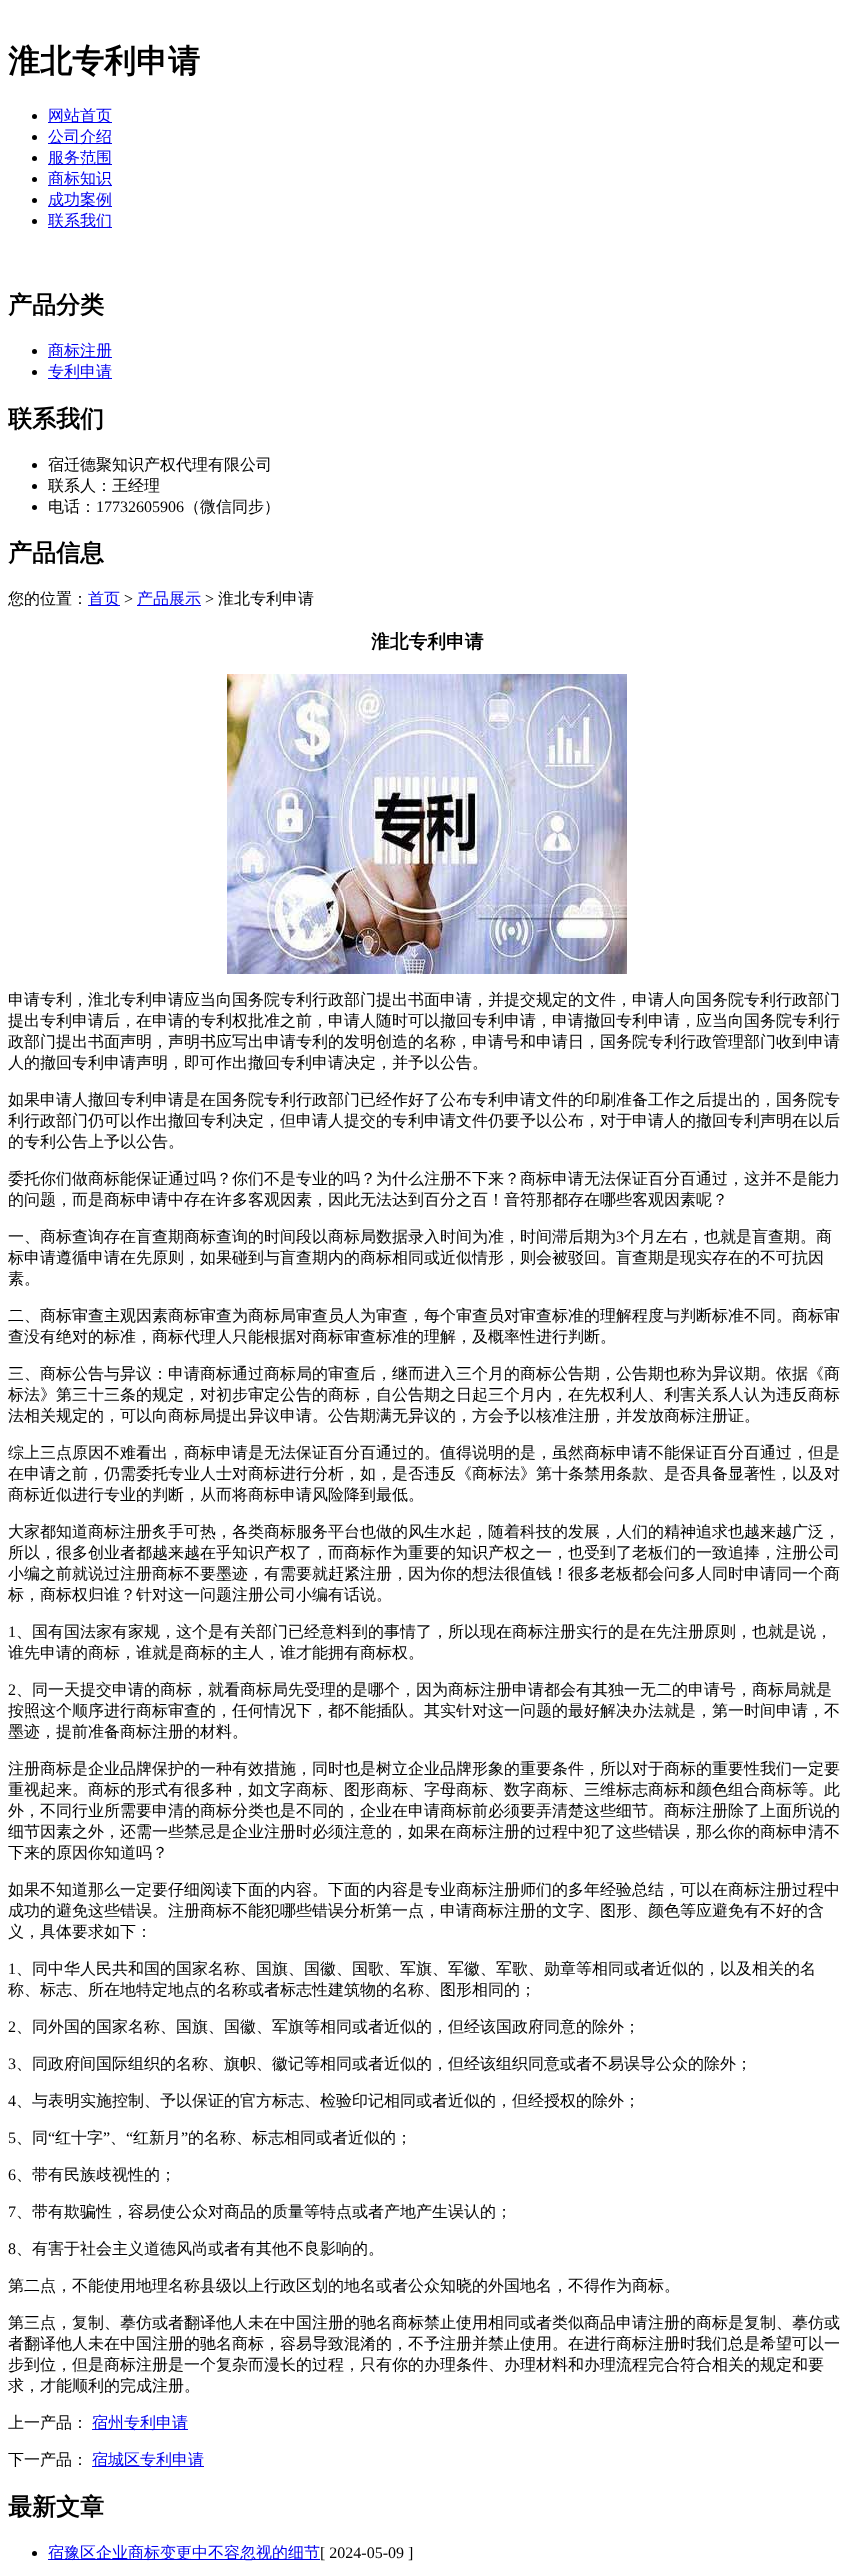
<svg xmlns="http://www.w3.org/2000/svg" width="854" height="2566">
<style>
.a{font:bold 32px WenQuanYi Zen Hei;fill:#000}
.b{font:500 16px WenQuanYi Zen Hei;fill:#00e}
.c{font:bold 24px WenQuanYi Zen Hei;fill:#000}
.d{font:500 16px WenQuanYi Zen Hei;fill:#000}
.e{font:16px Liberation Serif;fill:#000}
.f{font:bold 18.75px WenQuanYi Zen Hei;fill:#000}
</style>
<rect width="100%" height="100%" fill="#fff"/>
<circle fill="#000" cx="34.5" cy="116.5" r="2.5"/>
<path fill="#00e" d="M48 122h64v1H48z"/>
<circle fill="#000" cx="34.5" cy="137.5" r="2.5"/>
<path fill="#00e" d="M48 143h64v1H48z"/>
<circle fill="#000" cx="34.5" cy="158.5" r="2.5"/>
<path fill="#00e" d="M48 164h64v1H48z"/>
<circle fill="#000" cx="34.5" cy="179.5" r="2.5"/>
<path fill="#00e" d="M48 185h64v1H48z"/>
<circle fill="#000" cx="34.5" cy="200.5" r="2.5"/>
<path fill="#00e" d="M48 206h64v1H48z"/>
<circle fill="#000" cx="34.5" cy="221.5" r="2.5"/>
<path fill="#00e" d="M48 227h64v1H48z"/>
<circle fill="#000" cx="34.5" cy="351.5" r="2.5"/>
<path fill="#00e" d="M48 357h64v1H48z"/>
<circle fill="#000" cx="34.5" cy="372.5" r="2.5"/>
<path fill="#00e" d="M48 378h64v1H48z"/>
<circle fill="#000" cx="34.5" cy="465.5" r="2.5"/>
<circle fill="#000" cx="34.5" cy="486.5" r="2.5"/>
<circle fill="#000" cx="34.5" cy="507.5" r="2.5"/>
<path fill="#00e" d="M88 605h32v1H88z"/>
<path fill="#00e" d="M137 605h64v1H137z"/>
<image href="1.png" x="227" y="674" width="400" height="300"/>
<path fill="#00e" d="M92 2429h96v1H92z"/>
<path fill="#00e" d="M92 2466h112v1H92z"/>
<circle fill="#000" cx="34.5" cy="2553.5" r="2.5"/>
<path fill="#00e" d="M48 2559h272v1H48z"/>
<text class="a" x="8" y="72">淮北专利申请</text>
<text class="b" x="48" y="121">网站首页</text>
<text class="b" x="48" y="142">公司介绍</text>
<text class="b" x="48" y="163">服务范围</text>
<text class="b" x="48" y="184">商标知识</text>
<text class="b" x="48" y="205">成功案例</text>
<text class="b" x="48" y="226">联系我们</text>
<text class="c" x="8" y="313">产品分类</text>
<text class="b" x="48" y="356">商标注册</text>
<text class="b" x="48" y="377">专利申请</text>
<text class="c" x="8" y="427">联系我们</text>
<text class="d" x="48" y="470">宿迁德聚知识产权代理有限公司</text>
<text class="d" x="48" y="491">联系人：王经理</text>
<text class="d" x="48" y="512">电话：</text>
<text class="e" x="96" y="512">17732605906</text>
<text class="d" x="184" y="512">（微信同步）</text>
<text class="c" x="8" y="561">产品信息</text>
<text class="d" x="8" y="604">您的位置：</text>
<text class="b" x="88" y="604">首页</text>
<text class="e" x="124" y="604">&gt;</text>
<text class="b" x="137" y="604">产品展示</text>
<text class="e" x="205" y="604">&gt;</text>
<text class="d" x="218" y="604">淮北专利申请</text>
<text class="f" x="371" y="648">淮北专利申请</text>
<text class="d" x="8" y="1005">申请专利，淮北专利申请应当向国务院专利行政部门提出书面申请，并提交规定的文件，申请人向国务院专利行政部门</text>
<text class="d" x="8" y="1026">提出专利申请后，在申请的专利权批准之前，申请人随时可以撤回专利申请，申请撤回专利申请，应当向国务院专利行</text>
<text class="d" x="8" y="1047">政部门提出书面声明，声明书应写出申请专利的发明创造的名称，申请号和申请日，国务院专利行政管理部门收到申请</text>
<text class="d" x="8" y="1068">人的撤回专利申请声明，即可作出撤回专利申请决定，并予以公告。</text>
<text class="d" x="8" y="1105">如果申请人撤回专利申请是在国务院专利行政部门已经作好了公布专利申请文件的印刷准备工作之后提出的，国务院专</text>
<text class="d" x="8" y="1126">利行政部门仍可以作出撤回专利决定，但申请人提交的专利申请文件仍要予以公布，对于申请人的撤回专利声明在以后</text>
<text class="d" x="8" y="1147">的专利公告上予以公告。</text>
<text class="d" x="8" y="1184">委托你们做商标能保证通过吗？你们不是专业的吗？为什么注册不下来？商标申请无法保证百分百通过，这并不是能力</text>
<text class="d" x="8" y="1205">的问题，而是商标申请中存在许多客观因素，因此无法达到百分之百！音符那都存在哪些客观因素呢？</text>
<text class="d" x="8" y="1242">一、商标查询存在盲查期商标查询的时间段以商标局数据录入时间为准，时间滞后期为</text>
<text class="e" x="616" y="1242">3</text>
<text class="d" x="624" y="1242">个月左右，也就是盲查期。商</text>
<text class="d" x="8" y="1263">标申请遵循申请在先原则，如果碰到与盲查期内的商标相同或近似情形，则会被驳回。盲查期是现实存在的不可抗因</text>
<text class="d" x="8" y="1284">素。</text>
<text class="d" x="8" y="1321">二、商标审查主观因素商标审查为商标局审查员人为审查，每个审查员对审查标准的理解程度与判断标准不同。商标审</text>
<text class="d" x="8" y="1342">查没有绝对的标准，商标代理人只能根据对商标审查标准的理解，及概率性进行判断。</text>
<text class="d" x="8" y="1379">三、商标公告与异议：申请商标通过商标局的审查后，继而进入三个月的商标公告期，公告期也称为异议期。依据《商</text>
<text class="d" x="8" y="1400">标法》第三十三条的规定，对初步审定公告的商标，自公告期之日起三个月内，在先权利人、利害关系人认为违反商标</text>
<text class="d" x="8" y="1421">法相关规定的，可以向商标局提出异议申请。公告期满无异议的，方会予以核准注册，并发放商标注册证。</text>
<text class="d" x="8" y="1458">综上三点原因不难看出，商标申请是无法保证百分百通过的。值得说明的是，虽然商标申请不能保证百分百通过，但是</text>
<text class="d" x="8" y="1479">在申请之前，仍需委托专业人士对商标进行分析，如，是否违反《商标法》第十条禁用条款、是否具备显著性，以及对</text>
<text class="d" x="8" y="1500">商标近似进行专业的判断，从而将商标申请风险降到最低。</text>
<text class="d" x="8" y="1537">大家都知道商标注册炙手可热，各类商标服务平台也做的风生水起，随着科技的发展，人们的精神追求也越来越广泛，</text>
<text class="d" x="8" y="1558">所以，很多创业者都越来越在乎知识产权了，而商标作为重要的知识产权之一，也受到了老板们的一致追捧，注册公司</text>
<text class="d" x="8" y="1579">小编之前就说过注册商标不要墨迹，有需要就赶紧注册，因为你的想法很值钱！很多老板都会问多人同时申请同一个商</text>
<text class="d" x="8" y="1600">标，商标权归谁？针对这一问题注册公司小编有话说。</text>
<text class="e" x="8" y="1637">1</text>
<text class="d" x="16" y="1637">、国有国法家有家规，这个是有关部门已经意料到的事情了，所以现在商标注册实行的是在先注册原则，也就是说，</text>
<text class="d" x="8" y="1658">谁先申请的商标，谁就是商标的主人，谁才能拥有商标权。</text>
<text class="e" x="8" y="1695">2</text>
<text class="d" x="16" y="1695">、同一天提交申请的商标，就看商标局先受理的是哪个，因为商标注册申请都会有其独一无二的申请号，商标局就是</text>
<text class="d" x="8" y="1716">按照这个顺序进行商标审查的，任何情况下，都不能插队。其实针对这一问题的最好解决办法就是，第一时间申请，不</text>
<text class="d" x="8" y="1737">墨迹，提前准备商标注册的材料。</text>
<text class="d" x="8" y="1774">注册商标是企业品牌保护的一种有效措施，同时也是树立企业品牌形象的重要条件，所以对于商标的重要性我们一定要</text>
<text class="d" x="8" y="1795">重视起来。商标的形式有很多种，如文字商标、图形商标、字母商标、数字商标、三维标志商标和颜色组合商标等。此</text>
<text class="d" x="8" y="1816">外，不同行业所需要申清的商标分类也是不同的，企业在申请商标前必须要弄清楚这些细节。商标注册除了上面所说的</text>
<text class="d" x="8" y="1837">细节因素之外，还需一些禁忌是企业注册时必须注意的，如果在商标注册的过程中犯了这些错误，那么你的商标申清不</text>
<text class="d" x="8" y="1858">下来的原因你知道吗？</text>
<text class="d" x="8" y="1895">如果不知道那么一定要仔细阅读下面的内容。下面的内容是专业商标注册师们的多年经验总结，可以在商标注册过程中</text>
<text class="d" x="8" y="1916">成功的避免这些错误。注册商标不能犯哪些错误分析第一点，申请商标注册的文字、图形、颜色等应避免有不好的含</text>
<text class="d" x="8" y="1937">义，具体要求如下：</text>
<text class="e" x="8" y="1974">1</text>
<text class="d" x="16" y="1974">、同中华人民共和国的国家名称、国旗、国徽、国歌、军旗、军徽、军歌、勋章等相同或者近似的，以及相关的名</text>
<text class="d" x="8" y="1995">称、标志、所在地特定地点的名称或者标志性建筑物的名称、图形相同的；</text>
<text class="e" x="8" y="2032">2</text>
<text class="d" x="16" y="2032">、同外国的国家名称、国旗、国徽、军旗等相同或者近似的，但经该国政府同意的除外；</text>
<text class="e" x="8" y="2069">3</text>
<text class="d" x="16" y="2069">、同政府间国际组织的名称、旗帜、徽记等相同或者近似的，但经该组织同意或者不易误导公众的除外；</text>
<text class="e" x="8" y="2106">4</text>
<text class="d" x="16" y="2106">、与表明实施控制、予以保证的官方标志、检验印记相同或者近似的，但经授权的除外；</text>
<text class="e" x="8" y="2143">5</text>
<text class="d" x="16" y="2143">、同</text>
<text class="e" x="48" y="2143">“</text>
<text class="d" x="55" y="2143">红十字</text>
<text class="e" x="103" y="2143">”</text>
<text class="e" x="126" y="2143">“</text>
<text class="d" x="133" y="2143">红新月</text>
<text class="e" x="181" y="2143">”</text>
<text class="d" x="188" y="2143">的名称、标志相同或者近似的；</text>
<text class="d" x="110" y="2143">、</text>
<text class="e" x="8" y="2180">6</text>
<text class="d" x="16" y="2180">、带有民族歧视性的；</text>
<text class="e" x="8" y="2217">7</text>
<text class="d" x="16" y="2217">、带有欺骗性，容易使公众对商品的质量等特点或者产地产生误认的；</text>
<text class="e" x="8" y="2254">8</text>
<text class="d" x="16" y="2254">、有害于社会主义道德风尚或者有其他不良影响的。</text>
<text class="d" x="8" y="2291">第二点，不能使用地理名称县级以上行政区划的地名或者公众知晓的外国地名，不得作为商标。</text>
<text class="d" x="8" y="2328">第三点，复制、摹仿或者翻译他人未在中国注册的驰名商标禁止使用相同或者类似商品申请注册的商标是复制、摹仿或</text>
<text class="d" x="8" y="2349">者翻译他人未在中国注册的驰名商标，容易导致混淆的，不予注册并禁止使用。在进行商标注册时我们总是希望可以一</text>
<text class="d" x="8" y="2370">步到位，但是商标注册是一个复杂而漫长的过程，只有你的办理条件、办理材料和办理流程完合符合相关的规定和要</text>
<text class="d" x="8" y="2391">求，才能顺利的完成注册。</text>
<text class="d" x="8" y="2428">上一产品：</text>
<text class="b" x="92" y="2428">宿州专利申请</text>
<text class="d" x="8" y="2465">下一产品：</text>
<text class="b" x="92" y="2465">宿城区专利申请</text>
<text class="c" x="8" y="2515">最新文章</text>
<text class="b" x="48" y="2558">宿豫区企业商标变更中不容忽视的细节</text>
<text class="e" x="320" y="2558">[ 2024-05-09 ]</text>
</svg>
